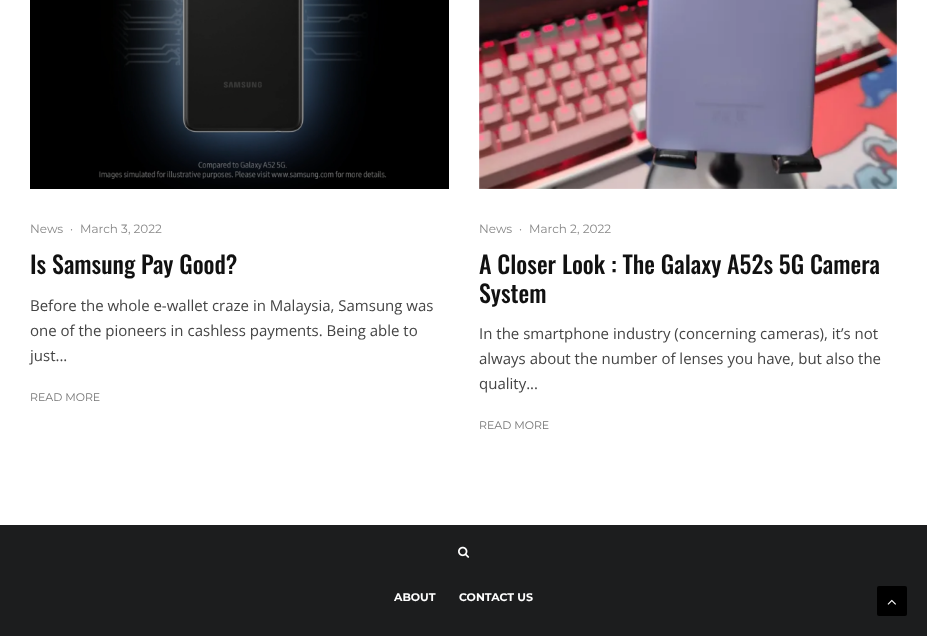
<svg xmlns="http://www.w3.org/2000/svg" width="927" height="636">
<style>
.a{font:12px Montserrat;fill:#888}
.b{font:500 24px Oswald;fill:#111}
.c{font:15px Open Sans;fill:#444}
.d{font:11px Montserrat;fill:#767676}
.e{font:bold 11px Montserrat;fill:#fff}
</style>
<rect width="100%" height="100%" fill="#fff"/>
<image href="1.png" x="30" y="0" width="419" height="189"/>
<image href="2.png" x="479" y="0" width="418" height="189"/>
<path fill="#1c1d1e" d="M0 525h927v111H0z"/>
<image href="3.png" x="458" y="546" width="12" height="12"/>
<rect fill="#000" x="877" y="586" width="30" height="30" rx="2"/>
<image href="4.png" x="887" y="599" width="9" height="6"/>
<text class="a" x="30" y="233">News</text>
<text class="a" x="70" y="233">·</text>
<text class="a" x="80" y="233">March 3, 2022</text>
<text class="b" x="30" y="274">Is Samsung Pay Good?</text>
<text class="c" x="30" y="311">Before the whole e-wallet craze in Malaysia, Samsung was</text>
<text class="c" x="30" y="336">one of the pioneers in cashless payments. Being able to</text>
<text class="c" x="30" y="361">just...</text>
<text class="d" x="30" y="401">READ MORE</text>
<text class="a" x="479" y="233">News</text>
<text class="a" x="519" y="233">·</text>
<text class="a" x="529" y="233">March 2, 2022</text>
<text class="b" x="479" y="274">A Closer Look : The Galaxy A52s 5G Camera</text>
<text class="b" x="479" y="303">System</text>
<text class="c" x="479" y="339">In the smartphone industry (concerning cameras), it’s not</text>
<text class="c" x="479" y="364">always about the number of lenses you have, but also the</text>
<text class="c" x="479" y="389">quality...</text>
<text class="d" x="479" y="429">READ MORE</text>
<text class="e" x="394" y="601">ABOUT</text>
<text class="e" x="459" y="601">CONTACT US</text>
</svg>
